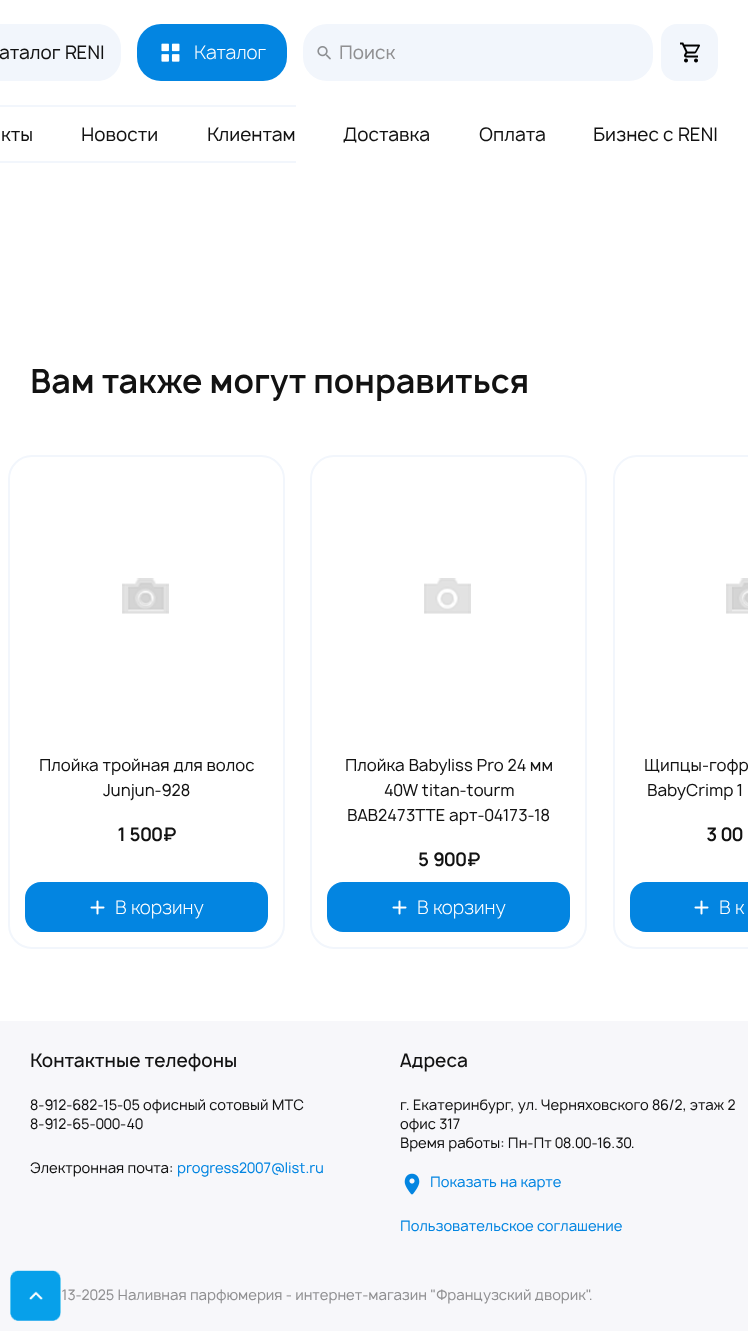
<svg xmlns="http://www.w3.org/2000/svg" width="748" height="1331">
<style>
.a{font:18px Manrope;fill:#121212}
.b{font:300 18px Manrope;fill:#fff}
.c{font:18px Manrope;fill:#909092}
.d{font:600 32px Manrope;fill:#121212}
.e{font:16px Manrope;fill:#121212}
.f{font:600 18px Manrope;fill:#121212}
.g{font:500 18px Manrope;fill:#121212}
.h{font:14px Manrope;fill:#121212}
.i{font:14px Manrope;fill:#0385e1}
.j{font:14px Manrope;fill:#909092}
</style>
<rect width="100%" height="100%" fill="#fff"/>
<path fill="#f2f6fc" d="M0 24h97c13.5 0 24 10.5 24 24v9c0 13.5-10.5 24-24 24h-97z"/>
<rect fill="#0385e1" x="137" y="24" width="150" height="57" rx="24"/>
<image href="1.png" x="161" y="43" width="19" height="19"/>
<rect fill="#f2f6fc" x="303" y="24" width="350" height="57" rx="24"/>
<image href="2.png" x="317" y="46" width="14" height="14"/>
<rect fill="#f2f6fc" x="661" y="24" width="57" height="57" rx="16"/>
<image href="3.png" x="680" y="42" width="20" height="21"/>
<path fill="#f2f6fc" d="M0 105h296v2H0z"/>
<path fill="#f2f6fc" d="M0 161h296v2H0z"/>
<rect fill="none" stroke="#f2f6fc" stroke-width="2" x="9" y="456" width="275" height="492" rx="23"/>
<image href="4.png" x="122" y="578" width="47" height="36"/>
<image href="5.png" x="128" y="582" width="36" height="30"/>
<rect fill="#0385e1" x="25" y="882" width="243" height="50" rx="16"/>
<image href="6.png" x="90" y="900" width="15" height="15"/>
<rect fill="none" stroke="#f2f6fc" stroke-width="2" x="311" y="456" width="275" height="492" rx="23"/>
<image href="4.png" x="424" y="578" width="47" height="36"/>
<rect fill="#0385e1" x="327" y="882" width="243" height="50" rx="16"/>
<image href="6.png" x="392" y="900" width="15" height="15"/>
<rect fill="none" stroke="#f2f6fc" stroke-width="2" x="614" y="456" width="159" height="492" rx="23"/>
<image href="7.png" x="726" y="578" width="22" height="36"/>
<image href="8.png" x="732" y="582" width="16" height="30"/>
<rect fill="#0385e1" x="630" y="882" width="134" height="50" rx="16"/>
<image href="6.png" x="694" y="900" width="15" height="15"/>
<path fill="#f7f7fa" d="M0 1021h748v310H0z"/>
<image href="9.png" x="404" y="1173" width="16" height="22"/>
<image href="10.png" x="10" y="1270" width="51" height="51"/>
<text class="a" x="-1" y="59">аталог RENI</text>
<text class="b" x="194" y="59">Каталог</text>
<text class="c" x="339" y="59">Поиск</text>
<text class="a" x="1" y="141">кты</text>
<text class="a" x="81" y="141">Новости</text>
<text class="a" x="207" y="141">Клиентам</text>
<text class="a" x="343" y="141">Доставка</text>
<text class="a" x="479" y="141">Оплата</text>
<text class="a" x="593" y="141">Бизнес с RENI</text>
<text class="d" x="30" y="393">Вам также могут понравиться</text>
<text class="e" x="39" y="771">Плойка тройная для волос</text>
<text class="e" x="103" y="796">Junjun-928</text>
<text class="f" x="118" y="841">1 500₽</text>
<text class="b" x="115" y="914">В корзину</text>
<text class="e" x="345" y="771">Плойка Babyliss Pro 24 мм</text>
<text class="e" x="384" y="796">40W titan-tourm</text>
<text class="e" x="347" y="821">BAB2473TTE арт-04173-18</text>
<text class="f" x="418" y="866">5 900₽</text>
<text class="b" x="417" y="914">В корзину</text>
<text class="e" x="644" y="771">Щипцы-гофр</text>
<text class="e" x="647" y="796">BabyCrimp 1</text>
<text class="f" x="706" y="841">3 00</text>
<text class="b" x="719" y="914">В к</text>
<text class="g" x="30" y="1067">Контактные телефоны</text>
<text class="h" x="30" y="1110">8-912-682-15-05 офисный сотовый МТС</text>
<text class="h" x="30" y="1129">8-912-65-000-40</text>
<text class="h" x="30" y="1173">Электронная почта:</text>
<text class="i" x="177" y="1173">progress2007@list.ru</text>
<text class="g" x="400" y="1067">Адреса</text>
<text class="h" x="400" y="1110">г. Екатеринбург, ул. Черняховского 86/2, этаж 2</text>
<text class="h" x="400" y="1129">офис 317</text>
<text class="h" x="400" y="1148">Время работы: Пн-Пт 08.00-16.30.</text>
<text class="i" x="430" y="1187">Показать на карте</text>
<text class="i" x="400" y="1231">Пользовательское соглашение</text>
<text class="j" x="62" y="1300">13-2025 Наливная парфюмерия - интернет-магазин "Французский дворик".</text>
</svg>
